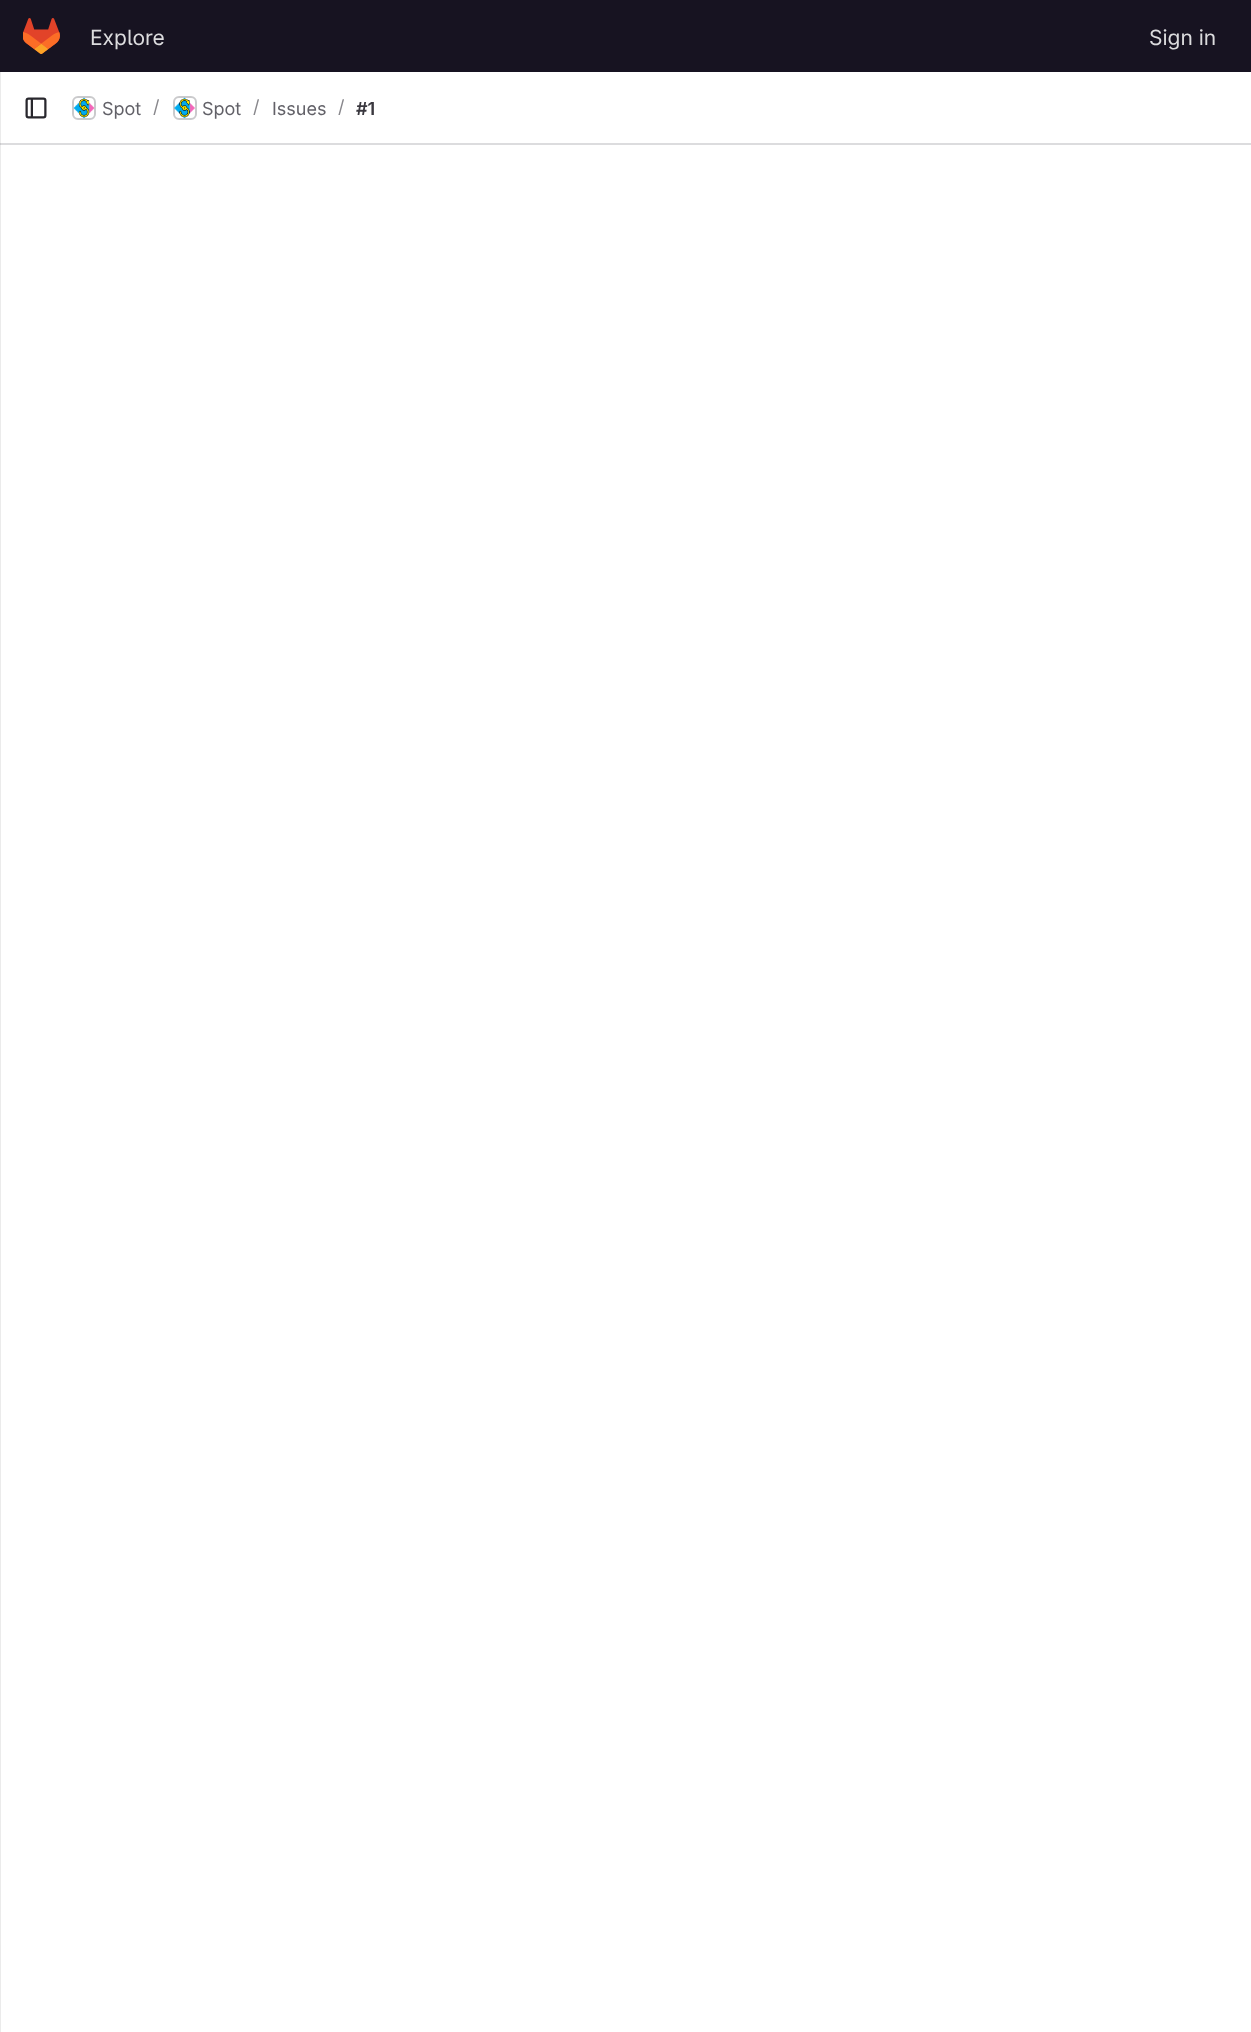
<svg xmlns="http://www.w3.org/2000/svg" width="1251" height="2032">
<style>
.a{font:21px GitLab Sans;fill:#dcdcde}
.b{font:18px GitLab Sans;fill:#626168}
.c{font:18px GitLab Sans;fill:#89888d}
.d{font:600 18px GitLab Sans;fill:#3a383f}
</style>
<rect width="100%" height="100%" fill="#fff"/>
<path fill="#ebebeb" d="M0 72h1v1960H0z"/>
<path fill="#171321" d="M0 0h1251v72H0z"/>
<image href="1.png" x="23" y="18" width="37" height="36"/>
<path fill="#dcdcde" d="M0 143h1251v2H0z"/>
<path fill="#cbcbcd" d="M0 143h1v2H0z"/>
<image href="2.png" x="25" y="97" width="22" height="22"/>
<rect fill="none" stroke="#dcdcde" stroke-width="2" x="73" y="97" width="22" height="22" rx="5"/>
<image href="3.png" x="73" y="97" width="22" height="22"/>
<rect fill="none" stroke="#05050614" stroke-width="2" x="73" y="97" width="22" height="22" rx="5"/>
<rect fill="none" stroke="#dcdcde" stroke-width="2" x="174" y="97" width="22" height="22" rx="5"/>
<image href="4.png" x="174" y="97" width="21" height="22"/>
<rect fill="none" stroke="#05050614" stroke-width="2" x="174" y="97" width="22" height="22" rx="5"/>
<text class="a" x="90" y="45">Explore</text>
<text class="a" x="1149" y="45">Sign in</text>
<text class="b" x="102" y="115">Spot</text>
<text class="c" x="153" y="113">/</text>
<text class="b" x="202" y="115">Spot</text>
<text class="c" x="253" y="113">/</text>
<text class="b" x="272" y="115">Issues</text>
<text class="c" x="338" y="113">/</text>
<text class="d" x="356" y="115">#1</text>
</svg>
